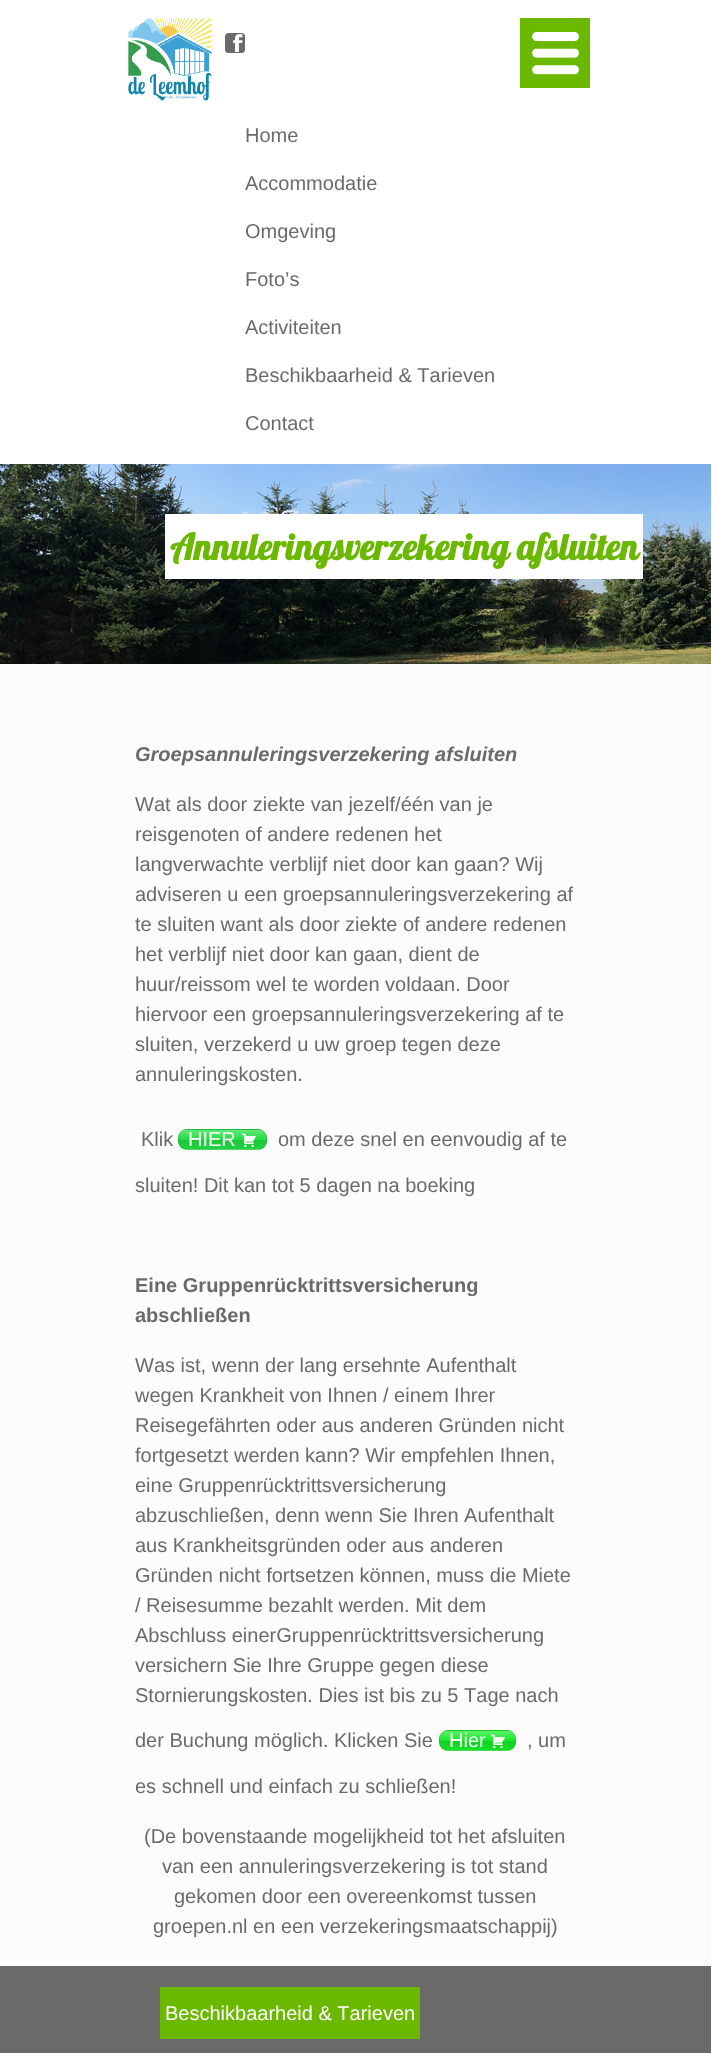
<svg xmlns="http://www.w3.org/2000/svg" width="712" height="2053">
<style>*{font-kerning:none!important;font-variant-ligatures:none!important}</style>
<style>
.a{font:20px Liberation Sans;fill:#6a6a6a}
.b{font:bold 36px Lobster;fill:#6bb800}
.c{font:italic bold 20px Liberation Sans;fill:#6a6a6a}
.d{font:20px Liberation Sans;fill:#fff}
.e{font:bold 20px Liberation Sans;fill:#6a6a6a}
</style>
<defs>
<linearGradient id="g1" gradientUnits="userSpaceOnUse" x1="223" y1="1111" x2="223" y2="1130"><stop offset="0" stop-color="#fff" stop-opacity="0.3"/><stop offset="0.5" stop-color="#fff" stop-opacity="0"/><stop offset="0.5" stop-color="#000" stop-opacity="0"/><stop offset="0.51" stop-color="#000" stop-opacity="0.12"/><stop offset="1" stop-color="#000" stop-opacity="0.04"/></linearGradient>
<clipPath id="clip1"><rect x="178" y="1129" width="89" height="21" rx="9"/></clipPath>
<linearGradient id="g2" gradientUnits="userSpaceOnUse" x1="223" y1="1130" x2="223" y2="1149"><stop offset="0" stop-color="#fff" stop-opacity="0.3"/><stop offset="0.5" stop-color="#fff" stop-opacity="0"/><stop offset="0.5" stop-color="#000" stop-opacity="0"/><stop offset="0.51" stop-color="#000" stop-opacity="0.12"/><stop offset="1" stop-color="#000" stop-opacity="0.04"/></linearGradient>
<linearGradient id="g3" gradientUnits="userSpaceOnUse" x1="223" y1="1149" x2="223" y2="1168"><stop offset="0" stop-color="#fff" stop-opacity="0.3"/><stop offset="0.5" stop-color="#fff" stop-opacity="0"/><stop offset="0.5" stop-color="#000" stop-opacity="0"/><stop offset="0.51" stop-color="#000" stop-opacity="0.12"/><stop offset="1" stop-color="#000" stop-opacity="0.04"/></linearGradient>
<linearGradient id="g4" gradientUnits="userSpaceOnUse" x1="478" y1="1712" x2="478" y2="1731"><stop offset="0" stop-color="#fff" stop-opacity="0.3"/><stop offset="0.5" stop-color="#fff" stop-opacity="0"/><stop offset="0.5" stop-color="#000" stop-opacity="0"/><stop offset="0.51" stop-color="#000" stop-opacity="0.12"/><stop offset="1" stop-color="#000" stop-opacity="0.04"/></linearGradient>
<clipPath id="clip2"><rect x="439" y="1730" width="77" height="21" rx="9"/></clipPath>
<linearGradient id="g5" gradientUnits="userSpaceOnUse" x1="478" y1="1731" x2="478" y2="1750"><stop offset="0" stop-color="#fff" stop-opacity="0.3"/><stop offset="0.5" stop-color="#fff" stop-opacity="0"/><stop offset="0.5" stop-color="#000" stop-opacity="0"/><stop offset="0.51" stop-color="#000" stop-opacity="0.12"/><stop offset="1" stop-color="#000" stop-opacity="0.04"/></linearGradient>
<linearGradient id="g6" gradientUnits="userSpaceOnUse" x1="478" y1="1750" x2="478" y2="1769"><stop offset="0" stop-color="#fff" stop-opacity="0.3"/><stop offset="0.5" stop-color="#fff" stop-opacity="0"/><stop offset="0.5" stop-color="#000" stop-opacity="0"/><stop offset="0.51" stop-color="#000" stop-opacity="0.12"/><stop offset="1" stop-color="#000" stop-opacity="0.04"/></linearGradient>
</defs>
<rect width="100%" height="100%" fill="#fff"/>
<image href="1.png" x="128" y="18" width="84" height="83"/>
<image href="2.png" x="225" y="33" width="20" height="20"/>
<image href="3.png" x="520" y="18" width="70" height="70"/>
<image href="4.png" x="0" y="464" width="711" height="200"/>
<path fill="#fff" d="M165 514h478v65H165z"/>
<path fill="#fcfcfc" d="M0 664h711v1302H0z"/>
<rect fill="#1fde3f" x="178" y="1129" width="89" height="21" rx="9"/>
<path fill="url(#g1)" d="M178 1129h89v1H178z"/>
<g clip-path="url(#clip1)">
<path fill="url(#g2)" d="M178 1130h89v19H178z"/>
<path fill="url(#g3)" d="M178 1149h89v1H178z"/>
</g>
<rect fill="none" stroke="#0000001a" x="178.5" y="1129.5" width="88" height="20" rx="8.5"/>
<image href="5.png" x="241" y="1133" width="16" height="15"/>
<rect fill="#15eb27" x="439" y="1730" width="77" height="21" rx="9"/>
<path fill="url(#g4)" d="M439 1730h77v1H439z"/>
<g clip-path="url(#clip2)">
<path fill="url(#g5)" d="M439 1731h77v19H439z"/>
<path fill="url(#g6)" d="M439 1750h77v1H439z"/>
</g>
<rect fill="none" stroke="#0000001a" x="439.5" y="1730.5" width="76" height="20" rx="8.5"/>
<image href="6.png" x="490" y="1734" width="16" height="15"/>
<path fill="#6a6a6a" d="M0 1966h711v87H0z"/>
<path fill="#6bb800" d="M160 1987h260v52H160z"/>
<text class="a" x="245" y="142">Home</text>
<text class="a" x="245" y="190">Accommodatie</text>
<text class="a" x="245" y="238">Omgeving</text>
<text class="a" x="245" y="286">Foto’s</text>
<text class="a" x="245" y="334">Activiteiten</text>
<text class="a" x="245" y="382">Beschikbaarheid &amp; Tarieven</text>
<text class="a" x="245" y="430">Contact</text>
<text class="b" x="170" y="560">Annuleringsverzekering</text>
<text class="b" x="517" y="560">afsluiten</text>
<text class="c" x="135" y="761">Groepsannuleringsverzekering afsluiten</text>
<text class="a" x="135" y="811">Wat als door ziekte van jezelf/één van je</text>
<text class="a" x="135" y="841">reisgenoten of andere redenen het</text>
<text class="a" x="135" y="871">langverwachte verblijf niet door kan gaan? Wij</text>
<text class="a" x="135" y="901">adviseren u een groepsannuleringsverzekering af</text>
<text class="a" x="135" y="931">te sluiten want als door ziekte of andere redenen</text>
<text class="a" x="135" y="961">het verblijf niet door kan gaan, dient de</text>
<text class="a" x="135" y="991">huur/reissom wel te worden voldaan. Door</text>
<text class="a" x="135" y="1021">hiervoor een groepsannuleringsverzekering af te</text>
<text class="a" x="135" y="1051">sluiten, verzekerd u uw groep tegen deze</text>
<text class="a" x="135" y="1081">annuleringskosten.</text>
<text class="a" x="141" y="1146">Klik</text>
<text class="d" x="188" y="1146">HIER</text>
<text class="a" x="278" y="1146">om deze snel en eenvoudig af te</text>
<text class="a" x="135" y="1192">sluiten! Dit kan tot 5 dagen na boeking</text>
<text class="e" x="135" y="1292">Eine Gruppenrücktrittsversicherung</text>
<text class="e" x="135" y="1322">abschließen</text>
<text class="a" x="135" y="1372">Was ist, wenn der lang ersehnte Aufenthalt</text>
<text class="a" x="135" y="1402">wegen Krankheit von Ihnen / einem Ihrer</text>
<text class="a" x="135" y="1432">Reisegefährten oder aus anderen Gründen nicht</text>
<text class="a" x="135" y="1462">fortgesetzt werden kann? Wir empfehlen Ihnen,</text>
<text class="a" x="135" y="1492">eine Gruppenrücktrittsversicherung</text>
<text class="a" x="135" y="1522">abzuschließen, denn wenn Sie Ihren Aufenthalt</text>
<text class="a" x="135" y="1552">aus Krankheitsgründen oder aus anderen</text>
<text class="a" x="135" y="1582">Gründen nicht fortsetzen können, muss die Miete</text>
<text class="a" x="135" y="1612">/ Reisesumme bezahlt werden. Mit dem</text>
<text class="a" x="135" y="1642">Abschluss einerGruppenrücktrittsversicherung</text>
<text class="a" x="135" y="1672">versichern Sie Ihre Gruppe gegen diese</text>
<text class="a" x="135" y="1702">Stornierungskosten. Dies ist bis zu 5 Tage nach</text>
<text class="a" x="135" y="1747">der Buchung möglich. Klicken Sie</text>
<text class="d" x="449" y="1747">Hier</text>
<text class="a" x="527" y="1747">, um</text>
<text class="a" x="135" y="1793">es schnell und einfach zu schließen!</text>
<text class="a" x="144" y="1843">(De bovenstaande mogelijkheid tot het afsluiten</text>
<text class="a" x="162" y="1873">van een annuleringsverzekering is tot stand</text>
<text class="a" x="174" y="1903">gekomen door een overeenkomst tussen</text>
<text class="a" x="153" y="1933">groepen.nl en een verzekeringsmaatschappij)</text>
<text class="d" x="165" y="2020">Beschikbaarheid &amp; Tarieven</text>
</svg>
